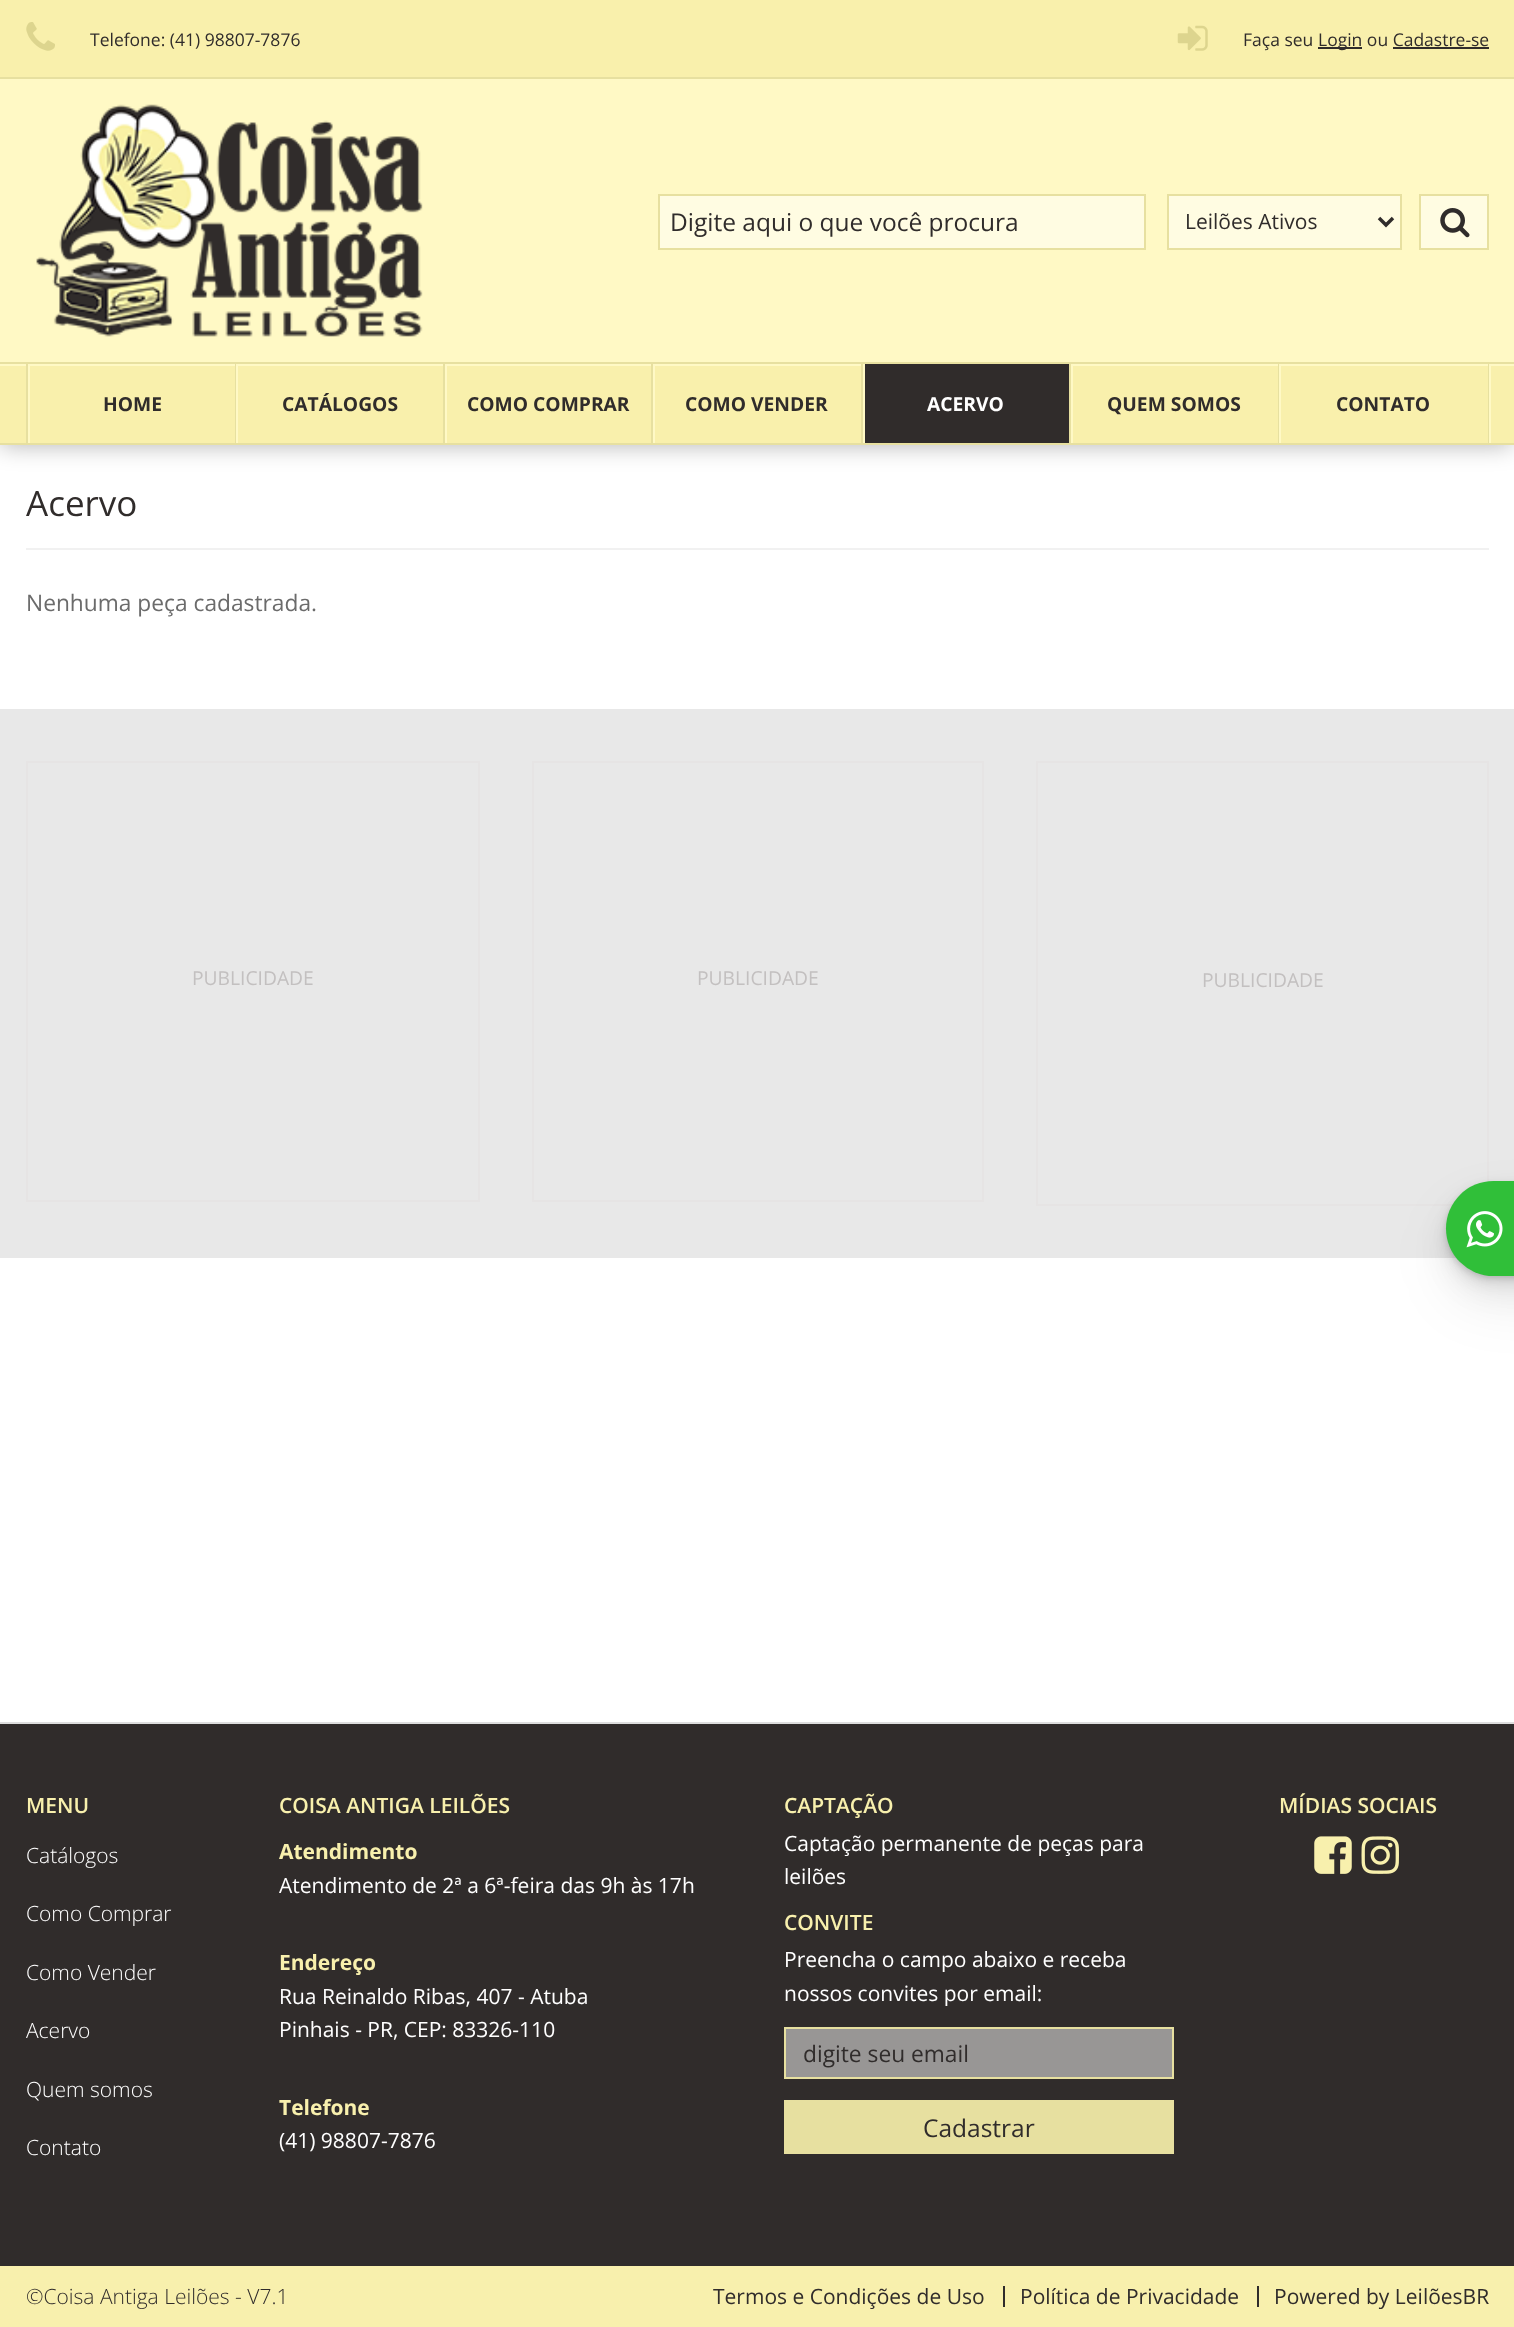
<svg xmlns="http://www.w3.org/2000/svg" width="1514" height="2327">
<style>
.a{font:17.5px Open Sans;fill:#302c2b}
.b{font:24.5px Open Sans;fill:#302c2b}
.c{font:21px Open Sans;fill:#302c2b}
.d{font:bold 19.25px Open Sans;fill:#302c2b}
.e{font:bold 19.25px Open Sans;fill:#fff}
.f{font:35px Open Sans;fill:#302c2b}
.g{font:22.75px Open Sans;fill:#6b6b6b}
.h{font:19.25px Open Sans;fill:#c3c0c0}
.i{font:600 21px Open Sans;fill:#f8f0ad}
.j{font:300 21px Open Sans;fill:#fff}
.k{font:bold 21px Open Sans;fill:#f8f0ad}
.l{font:21px Open Sans;fill:#fff}
.m{font:22.75px Open Sans;fill:#302c2b}
.n{font:300 21px Open Sans;fill:#302c2b}
</style>
<rect width="100%" height="100%" fill="#fff"/>
<path fill="#0000004d" filter="blur(12px)" d="M0 5h1512v440H0z"/>
<path fill="#fff9c5" d="M0 79h1514v283H0z"/>
<path fill="#f9f0ac" d="M0 0h1514v77H0z"/>
<path fill="#e7e0a0" d="M0 77h1514v2H0z"/>
<image href="1.png" x="26" y="22" width="29" height="29"/>
<image href="2.png" x="1177" y="25" width="31" height="26"/>
<path fill="#302c2b" d="M1318 47h44v2H1318z"/>
<path fill="#302c2b" d="M1393 47h96v2H1393z"/>
<image href="3.png" x="36" y="104" width="387" height="233"/>
<path fill="#fffce2" stroke="#e7e0a0" stroke-width="2" d="M659 195h486v54H659z"/>
<path fill="#fffce2" stroke="#e7e0a0" stroke-width="2" d="M1168 195h233v54H1168z"/>
<path fill="none" stroke="#302c2b" stroke-width="3.5" d="M1379 218l7 7l7-7"/>
<path fill="#fffce2" stroke="#e7e0a0" stroke-width="2" d="M1420 195h68v54H1420z"/>
<image href="4.png" x="1440" y="208" width="30" height="30"/>
<path fill="#f9f0ac" d="M0 366h1514v77H0z"/>
<path fill="#e7e0a0" d="M0 362h1514v2H0z"/>
<path fill="#fff9c5" d="M0 364h1514v2H0z"/>
<path fill="#e7e0a0" d="M1488 364h1v79H1488z"/>
<path fill="#e7e0a0" d="M26 364h2v79H26z"/>
<path fill="#e7e0a0" d="M235 364h1v79H235z"/>
<path fill="#fff9c5" d="M28 364h2v79H28z"/>
<path fill="#fff9c5" d="M236 364h2v79H236z"/>
<path fill="#e7e0a0" d="M443 364h2v79H443z"/>
<path fill="#fff9c5" d="M445 364h2v79H445z"/>
<path fill="#e7e0a0" d="M651 364h2v79H651z"/>
<path fill="#fff9c5" d="M653 364h2v79H653z"/>
<path fill="#e7e0a0" d="M861 364h2v79H861z"/>
<path fill="#fff9c5" d="M863 364h2v79H863z"/>
<path fill="#302c2b" d="M865 364h204v79H865z"/>
<path fill="#e7e0a0" d="M1069 364h2v79H1069z"/>
<path fill="#fff9c5" d="M1071 364h2v79H1071z"/>
<path fill="#e7e0a0" d="M1278 364h1v79H1278z"/>
<path fill="#fff9c5" d="M1279 364h2v79H1279z"/>
<path fill="#fff9c5" d="M1489 364h2v79H1489z"/>
<path fill="#e7e0a0" d="M0 443h1514v2H0z"/>
<path fill="#f1f1f1" d="M26 548h1463v2H26z"/>
<path fill="#e8e8e8" d="M0 709h1514v549H0z"/>
<path fill="none" stroke="#e6e4e4" stroke-width="2" d="M27 762h452v439H27z"/>
<path fill="none" stroke="#e6e4e4" stroke-width="2" d="M533 762h450v439H533z"/>
<path fill="none" stroke="#e6e4e4" stroke-width="2" d="M1037 762h451v443H1037z"/>
<path fill="#302c2b" d="M0 1724h1514v542H0z"/>
<path fill="#ddd" d="M0 1722h1514v2H0z"/>
<path fill="#989695" stroke="#e7e0a0" stroke-width="2" d="M785 2028h388v50H785z"/>
<path fill="#e7e0a0" d="M784 2100h390v54H784z"/>
<image href="5.png" x="1314" y="1836" width="38" height="38"/>
<image href="6.png" x="1361" y="1836" width="38" height="38"/>
<path fill="#f8f0ad" d="M0 2266h1514v61H0z"/>
<path fill="#302c2b" d="M1003 2286h2v21H1003z"/>
<path fill="#302c2b" d="M1257 2286h2v21H1257z"/>
<rect fill="#00000012" filter="blur(28px)" x="1446" y="1209" width="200" height="95" rx="47.5"/>
<rect fill="#00000012" filter="blur(14px)" x="1446" y="1195" width="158" height="95" rx="47.5"/>
<rect fill="#00000012" filter="blur(7px)" x="1446" y="1188" width="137" height="95" rx="47.5"/>
<rect fill="#00000012" filter="blur(3.5px)" x="1446" y="1185" width="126" height="94" rx="47"/>
<rect fill="#00000012" filter="blur(2px)" x="1446" y="1183" width="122" height="95" rx="47.5"/>
<rect fill="#30bf39" x="1446" y="1181" width="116" height="95" rx="47.5"/>
<image href="7.png" x="1466" y="1211" width="37" height="37"/>
<text class="a" x="90" y="46">Telefone: (41) 98807-7876</text>
<text class="a" x="1243" y="46">Faça seu</text>
<text class="a" x="1318" y="46">Login ou Cadastre-se</text>
<text class="b" x="670" y="231">Digite aqui o que você procura</text>
<text class="c" x="1185" y="229">Leilões Ativos</text>
<text class="d" x="103" y="411">HOME</text>
<text class="d" x="282" y="411">CATÁLOGOS</text>
<text class="d" x="467" y="411">COMO COMPRAR</text>
<text class="d" x="685" y="411">COMO VENDER</text>
<text class="e" x="927" y="411">ACERVO</text>
<text class="d" x="1107" y="411">QUEM SOMOS</text>
<text class="d" x="1336" y="411">CONTATO</text>
<text class="f" x="26" y="516">Acervo</text>
<text class="g" x="26" y="611">Nenhuma peça cadastrada.</text>
<text class="h" x="192" y="985">PUBLICIDADE</text>
<text class="h" x="697" y="985">PUBLICIDADE</text>
<text class="h" x="1202" y="987">PUBLICIDADE</text>
<text class="i" x="26" y="1813">MENU</text>
<text class="j" x="26" y="1863">Catálogos</text>
<text class="j" x="26" y="1921">Como Comprar</text>
<text class="j" x="26" y="1980">Como Vender</text>
<text class="j" x="26" y="2038">Acervo</text>
<text class="j" x="26" y="2097">Quem somos</text>
<text class="j" x="26" y="2155">Contato</text>
<text class="i" x="279" y="1813">COISA ANTIGA LEILÕES</text>
<text class="k" x="279" y="1859">Atendimento</text>
<text class="l" x="279" y="1893">Atendimento de 2ª a 6ª-feira das 9h às 17h</text>
<text class="k" x="279" y="1970">Endereço</text>
<text class="l" x="279" y="2004">Rua Reinaldo Ribas, 407 - Atuba</text>
<text class="l" x="279" y="2037">Pinhais - PR, CEP: 83326-110</text>
<text class="k" x="279" y="2115">Telefone</text>
<text class="l" x="279" y="2148">(41) 98807-7876</text>
<text class="i" x="784" y="1813">CAPTAÇÃO</text>
<text class="l" x="784" y="1851">Captação permanente de peças para</text>
<text class="l" x="784" y="1884">leilões</text>
<text class="i" x="784" y="1930">CONVITE</text>
<text class="l" x="784" y="1967">Preencha o campo abaixo e receba</text>
<text class="l" x="784" y="2001">nossos convites por email:</text>
<text class="m" x="803" y="2062">digite seu email</text>
<text class="b" x="923" y="2137">Cadastrar</text>
<text class="i" x="1279" y="1813">MÍDIAS SOCIAIS</text>
<text class="n" x="26" y="2304">©Coisa Antiga Leilões - V7.1</text>
<text class="c" x="713" y="2304">Termos e Condições de Uso</text>
<text class="c" x="1020" y="2304">Política de Privacidade</text>
<text class="c" x="1274" y="2304">Powered by LeilõesBR</text>
</svg>
